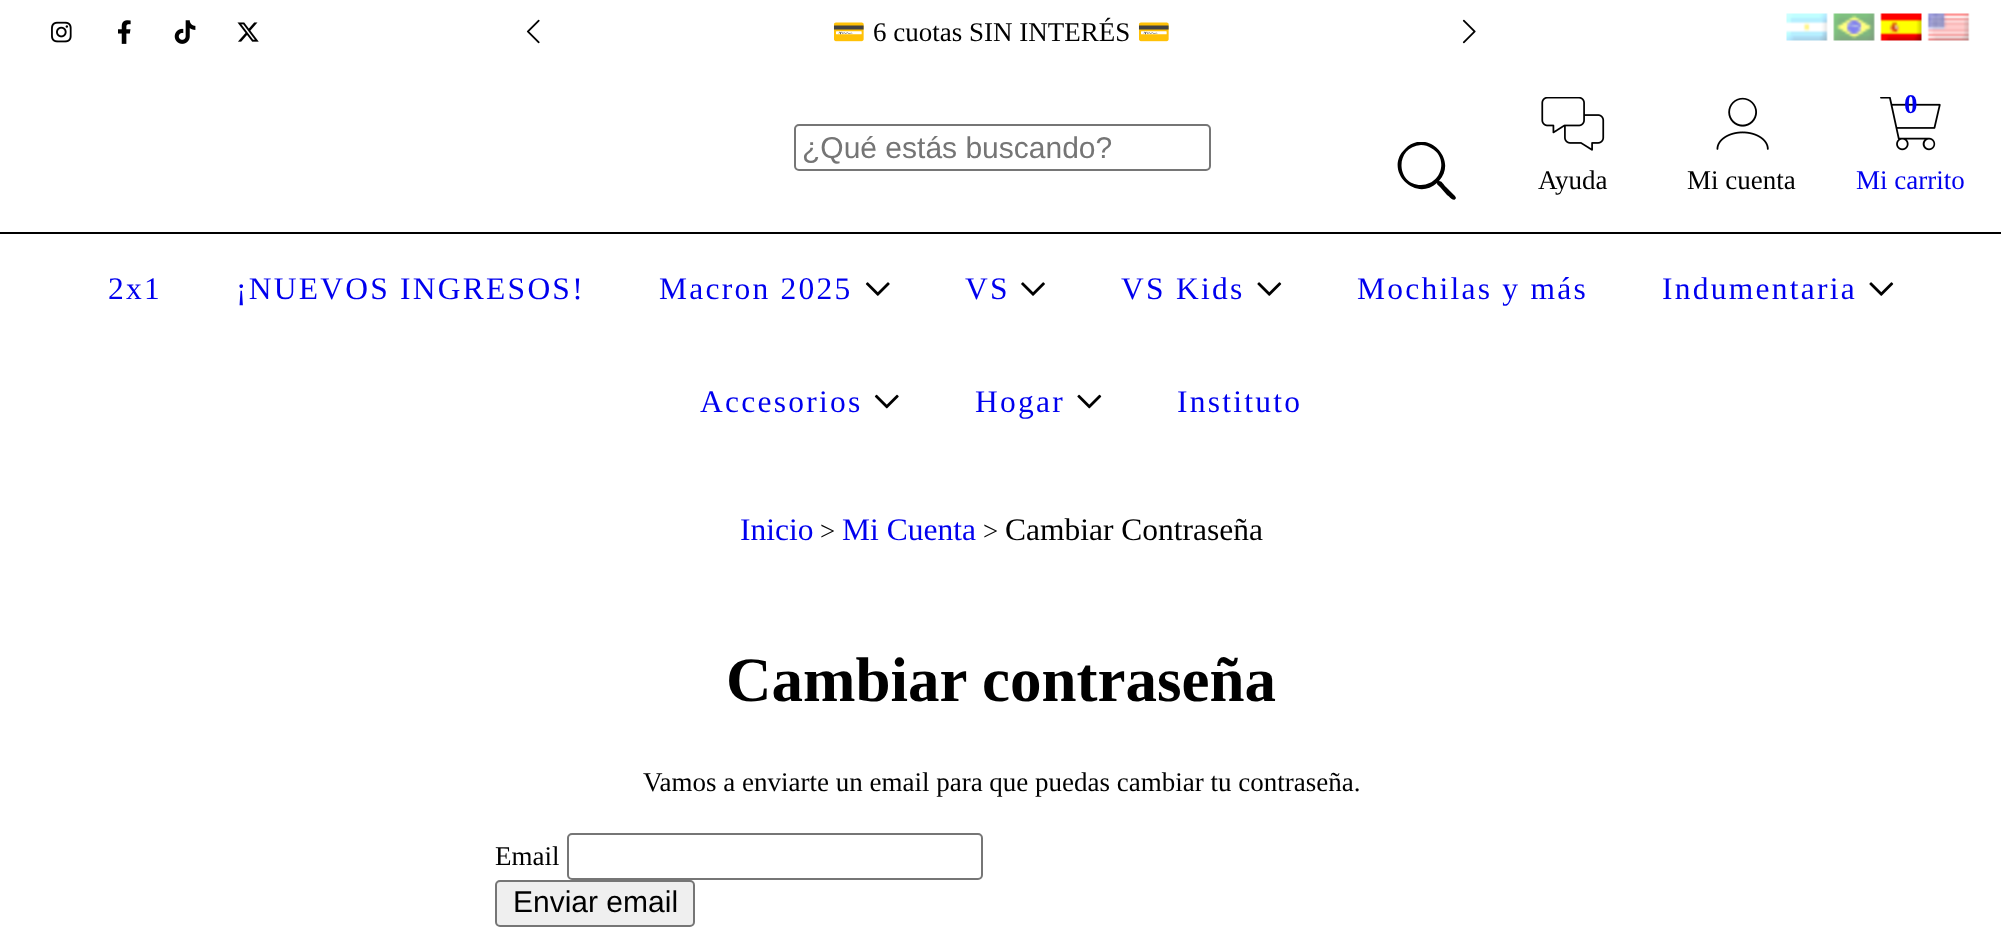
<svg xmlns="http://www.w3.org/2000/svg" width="2001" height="936">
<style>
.a{font:27px Noto Color Emoji;fill:#000}
.b{font:27px Liberation Serif;fill:#000}
.c{font:30px Liberation Sans;fill:#757575}
.d{font:bold 27px Liberation Serif;fill:#00e}
.e{font:27px Liberation Serif;fill:#00e}
.f{font:31.5px Liberation Serif;letter-spacing:2.25px;fill:#00e}
.g{font:31.5px Liberation Serif;fill:#00e}
.h{font:31.5px Liberation Serif;fill:#000}
.i{font:bold 63px Liberation Serif;fill:#000}
.j{font:30px Liberation Sans;fill:#000}
</style>
<defs>
<clipPath id="clip1"><path d="M1397 142h60v60H1397z"/></clipPath>
</defs>
<rect width="100%" height="100%" fill="#fff"/>
<image href="1.png" x="51" y="21" width="21" height="22"/>
<image href="2.png" x="118" y="20" width="13" height="24"/>
<image href="3.png" x="174" y="20" width="22" height="24"/>
<image href="4.png" x="237" y="22" width="22" height="20"/>
<image href="5.png" x="526" y="19" width="14" height="25"/>
<image href="6.png" x="1462" y="19" width="14" height="25"/>
<image href="7.png" x="1786" y="13" width="42" height="28"/>
<image href="8.png" x="1833" y="13" width="42" height="28"/>
<image href="9.png" x="1880" y="13" width="42" height="28"/>
<image href="10.png" x="1927" y="13" width="43" height="28"/>
<rect fill="none" stroke="#767676" stroke-width="2" x="795" y="125" width="415" height="45" rx="4"/>
<g clip-path="url(#clip1)">
<path fill="#000" d="M1455 196l-9-9c-3-3-4-6-7-6c20-22-13-54-34-32c-22 21 10 54 32 34c0 2 1 2 3 4l7 8c2 1 7 8 9 3zm-34-11c-25 0-27-38 0-40c4 0 7 1 10 3c18 9 11 37-10 37z"/>
</g>
<image href="11.png" x="1541" y="97" width="64" height="54"/>
<image href="12.png" x="1716" y="97" width="53" height="53"/>
<image href="13.png" x="1880" y="97" width="61" height="54"/>
<path fill="#000" d="M0 232h2001v2H0z"/>
<image href="14.png" x="865" y="282" width="25" height="14"/>
<image href="15.png" x="1021" y="282" width="24" height="14"/>
<image href="16.png" x="1257" y="282" width="25" height="14"/>
<image href="16.png" x="1869" y="282" width="25" height="14"/>
<image href="17.png" x="874" y="394" width="25" height="15"/>
<image href="18.png" x="1077" y="394" width="25" height="15"/>
<rect fill="none" stroke="#767676" stroke-width="2" x="568" y="834" width="414" height="45" rx="4"/>
<rect fill="#efefef" stroke="#767676" stroke-width="2" x="496" y="881" width="198" height="45" rx="4"/>
<text class="a" x="832" y="41">💳</text>
<text class="b" x="873" y="41">6 cuotas SIN INTERÉS</text>
<text class="a" x="1137" y="41">💳</text>
<text class="c" x="802" y="158">¿Qué estás buscando?</text>
<text class="b" x="1538" y="189">Ayuda</text>
<text class="b" x="1687" y="189">Mi cuenta</text>
<text class="d" x="1904" y="113">0</text>
<text class="e" x="1856" y="189">Mi carrito</text>
<text class="f" x="108" y="299">2x1</text>
<text class="f" x="236" y="299">¡NUEVOS INGRESOS!</text>
<text class="f" x="659" y="299">Macron 2025</text>
<text class="f" x="965" y="299">VS</text>
<text class="f" x="1121" y="299">VS Kids</text>
<text class="f" x="1357" y="299">Mochilas y más</text>
<text class="f" x="1662" y="299">Indumentaria</text>
<text class="f" x="700" y="412">Accesorios</text>
<text class="f" x="975" y="412">Hogar</text>
<text class="f" x="1177" y="412">Instituto</text>
<text class="g" x="740" y="540">Inicio</text>
<text class="b" x="820" y="540">&gt;</text>
<text class="g" x="842" y="540">Mi Cuenta</text>
<text class="b" x="983" y="540">&gt;</text>
<text class="h" x="1005" y="540">Cambiar Contraseña</text>
<text class="i" x="726" y="701">Cambiar contraseña</text>
<text class="b" x="643" y="791">Vamos a enviarte un email para que puedas cambiar tu contraseña.</text>
<text class="b" x="495" y="865">Email</text>
<text class="j" x="513" y="912">Enviar email</text>
</svg>
